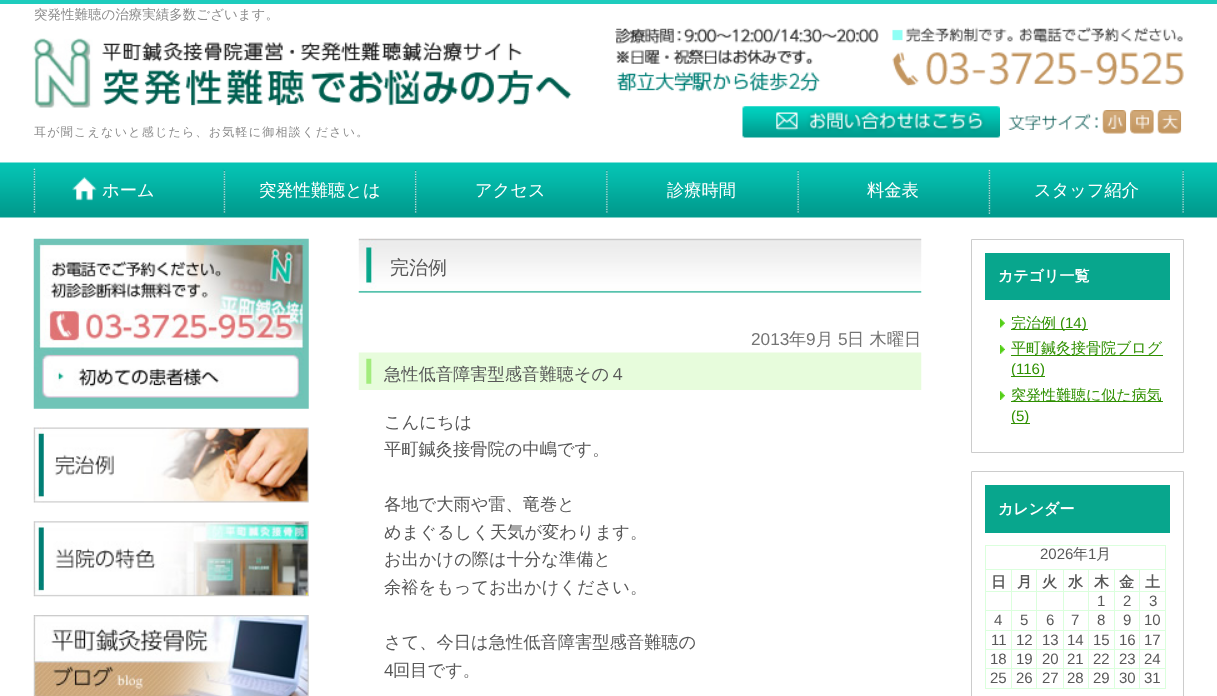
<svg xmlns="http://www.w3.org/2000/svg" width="1217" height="696">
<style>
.a{font:500 13.5px WenQuanYi Zen Hei;fill:#8c8c8c}
.b{font:500 12px WenQuanYi Zen Hei;letter-spacing:1.25px;fill:#8c8c8c}
.c{font:500 17.25px WenQuanYi Zen Hei;fill:#fff}
.d{font:500 19px WenQuanYi Zen Hei;fill:#585858}
.e{font:17.25px Liberation Sans;fill:#747474}
.f{font:500 17.25px WenQuanYi Zen Hei;fill:#747474}
.g{font:500 17.25px WenQuanYi Zen Hei;fill:#585858}
.h{font:17.25px Liberation Sans;fill:#585858}
.i{font:bold 15px WenQuanYi Zen Hei;fill:#fff}
.j{font:500 15px WenQuanYi Zen Hei;fill:#2f9001}
.k{font:15px Liberation Sans;fill:#2f9001}
.l{font:15px Liberation Sans;fill:#585858}
.m{font:500 15px WenQuanYi Zen Hei;fill:#585858}
.n{font:bold 15px WenQuanYi Zen Hei;fill:#585858}
</style>
<rect width="100%" height="100%" fill="#fff"/>
<path fill="#1eccbd" d="M0 0h1217v4H0z"/>
<image href="1.png" x="0" y="162" width="1217" height="56"/>
<image href="2.png" x="33" y="38" width="539" height="70"/>
<image href="3.png" x="615" y="27" width="569" height="65"/>
<image href="4.png" x="742" y="106" width="258" height="32"/>
<image href="5.png" x="1008" y="113" width="90" height="17"/>
<image href="6.png" x="1102" y="110" width="25" height="24"/>
<image href="7.png" x="1130" y="110" width="24" height="24"/>
<image href="8.png" x="1157" y="110" width="25" height="24"/>
<image href="9.png" x="33" y="168" width="191" height="46"/>
<image href="10.png" x="223" y="170" width="192" height="44"/>
<image href="11.png" x="415" y="170" width="191" height="44"/>
<image href="12.png" x="606" y="170" width="192" height="44"/>
<image href="13.png" x="797" y="170" width="192" height="44"/>
<image href="14.png" x="988" y="169" width="196" height="45"/>
<image href="15.png" x="33" y="238" width="276" height="171"/>
<image href="16.png" x="33" y="427" width="276" height="76"/>
<image href="17.png" x="33" y="521" width="276" height="76"/>
<image href="18.png" x="33" y="615" width="276" height="81"/>
<image href="19.png" x="358" y="238" width="564" height="55"/>
<image href="20.png" x="358" y="352" width="564" height="38"/>
<path fill="none" stroke="#ccc" d="M971.5 239.5h212v213H971.5z"/>
<path fill="#08a68d" d="M985 253h185v47H985z"/>
<image href="21.png" x="1000" y="318" width="5" height="10"/>
<path fill="#2f9001" d="M1011 329h77v1H1011z"/>
<image href="22.png" x="1000" y="345" width="5" height="9"/>
<path fill="#2f9001" d="M1011 355h152v1H1011z"/>
<path fill="#2f9001" d="M1011 376h34v1H1011z"/>
<image href="23.png" x="1000" y="391" width="5" height="9"/>
<path fill="#2f9001" d="M1011 401h152v1H1011z"/>
<path fill="#2f9001" d="M1011 423h19v1H1011z"/>
<path fill="none" stroke="#ccc" d="M971.5 471.5h212v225H971.5z"/>
<path fill="#08a68d" d="M985 485h185v48H985z"/>
<path fill="#dbffdd" d="M985 545h181v1H985z"/>
<path fill="#dbffdd" d="M1165 545h1v144H1165z"/>
<path fill="#dbffdd" d="M985 688h181v1H985z"/>
<path fill="#dbffdd" d="M985 545h1v144H985z"/>
<path fill="#dbffdd" d="M1139 569h27v1H1139z"/>
<path fill="#dbffdd" d="M1139 591h27v1H1139z"/>
<path fill="#dbffdd" d="M1139 610h27v1H1139z"/>
<path fill="#dbffdd" d="M1139 630h27v1H1139z"/>
<path fill="#dbffdd" d="M1139 649h27v1H1139z"/>
<path fill="#dbffdd" d="M1139 668h27v1H1139z"/>
<path fill="#dbffdd" d="M1139 668h1v21H1139z"/>
<path fill="#dbffdd" d="M1114 668h26v1H1114z"/>
<path fill="#dbffdd" d="M1139 649h1v20H1139z"/>
<path fill="#dbffdd" d="M1114 649h26v1H1114z"/>
<path fill="#dbffdd" d="M1139 630h1v20H1139z"/>
<path fill="#dbffdd" d="M1114 630h26v1H1114z"/>
<path fill="#dbffdd" d="M1139 610h1v21H1139z"/>
<path fill="#dbffdd" d="M1114 610h26v1H1114z"/>
<path fill="#dbffdd" d="M1139 591h1v20H1139z"/>
<path fill="#dbffdd" d="M1114 591h26v1H1114z"/>
<path fill="#dbffdd" d="M1139 569h1v24H1139z"/>
<path fill="#dbffdd" d="M1114 569h26v1H1114z"/>
<path fill="#dbffdd" d="M1114 668h1v21H1114z"/>
<path fill="#dbffdd" d="M1088 668h27v1H1088z"/>
<path fill="#dbffdd" d="M1114 649h1v20H1114z"/>
<path fill="#dbffdd" d="M1088 649h27v1H1088z"/>
<path fill="#dbffdd" d="M1114 630h1v20H1114z"/>
<path fill="#dbffdd" d="M1088 630h27v1H1088z"/>
<path fill="#dbffdd" d="M1114 610h1v21H1114z"/>
<path fill="#dbffdd" d="M1088 610h27v1H1088z"/>
<path fill="#dbffdd" d="M1114 591h1v20H1114z"/>
<path fill="#dbffdd" d="M1088 591h27v1H1088z"/>
<path fill="#dbffdd" d="M1114 569h1v24H1114z"/>
<path fill="#dbffdd" d="M1088 569h27v1H1088z"/>
<path fill="#dbffdd" d="M1088 668h1v21H1088z"/>
<path fill="#dbffdd" d="M1063 668h26v1H1063z"/>
<path fill="#dbffdd" d="M1088 649h1v20H1088z"/>
<path fill="#dbffdd" d="M1063 649h26v1H1063z"/>
<path fill="#dbffdd" d="M1088 630h1v20H1088z"/>
<path fill="#dbffdd" d="M1063 630h26v1H1063z"/>
<path fill="#dbffdd" d="M1088 610h1v21H1088z"/>
<path fill="#dbffdd" d="M1063 610h26v1H1063z"/>
<path fill="#dbffdd" d="M1088 591h1v20H1088z"/>
<path fill="#dbffdd" d="M1063 591h26v1H1063z"/>
<path fill="#dbffdd" d="M1088 569h1v24H1088z"/>
<path fill="#dbffdd" d="M1063 569h26v1H1063z"/>
<path fill="#dbffdd" d="M1063 668h1v21H1063z"/>
<path fill="#dbffdd" d="M1036 668h28v1H1036z"/>
<path fill="#dbffdd" d="M1063 649h1v20H1063z"/>
<path fill="#dbffdd" d="M1036 649h28v1H1036z"/>
<path fill="#dbffdd" d="M1063 630h1v20H1063z"/>
<path fill="#dbffdd" d="M1036 630h28v1H1036z"/>
<path fill="#dbffdd" d="M1063 610h1v21H1063z"/>
<path fill="#dbffdd" d="M1036 610h28v1H1036z"/>
<path fill="#dbffdd" d="M1063 591h1v20H1063z"/>
<path fill="#dbffdd" d="M1036 591h28v1H1036z"/>
<path fill="#dbffdd" d="M1063 569h1v24H1063z"/>
<path fill="#dbffdd" d="M1036 569h28v1H1036z"/>
<path fill="#dbffdd" d="M1036 668h1v21H1036z"/>
<path fill="#dbffdd" d="M1011 668h27v1H1011z"/>
<path fill="#dbffdd" d="M1036 649h1v20H1036z"/>
<path fill="#dbffdd" d="M1011 649h27v1H1011z"/>
<path fill="#dbffdd" d="M1036 630h1v20H1036z"/>
<path fill="#dbffdd" d="M1011 630h27v1H1011z"/>
<path fill="#dbffdd" d="M1036 610h1v21H1036z"/>
<path fill="#dbffdd" d="M1011 610h27v1H1011z"/>
<path fill="#dbffdd" d="M1036 591h1v20H1036z"/>
<path fill="#dbffdd" d="M1011 591h27v1H1011z"/>
<path fill="#dbffdd" d="M1036 569h1v24H1036z"/>
<path fill="#dbffdd" d="M1011 569h27v1H1011z"/>
<path fill="#dbffdd" d="M1011 668h1v21H1011z"/>
<path fill="#dbffdd" d="M985 668h28v1H985z"/>
<path fill="#dbffdd" d="M1011 649h1v20H1011z"/>
<path fill="#dbffdd" d="M985 649h28v1H985z"/>
<path fill="#dbffdd" d="M1011 630h1v20H1011z"/>
<path fill="#dbffdd" d="M985 630h28v1H985z"/>
<path fill="#dbffdd" d="M1011 610h1v21H1011z"/>
<path fill="#dbffdd" d="M985 610h28v1H985z"/>
<path fill="#dbffdd" d="M1011 591h1v20H1011z"/>
<path fill="#dbffdd" d="M985 591h28v1H985z"/>
<path fill="#dbffdd" d="M1011 569h1v24H1011z"/>
<path fill="#dbffdd" d="M985 569h28v1H985z"/>
<text class="a" x="34" y="19">突発性難聴の治療実績多数ございます。</text>
<text class="b" x="34" y="136">耳が聞こえないと感じたら、お気軽に御相談ください。</text>
<text class="c" x="102" y="196">ホーム</text>
<text class="c" x="259" y="196">突発性難聴とは</text>
<text class="c" x="475" y="196">アクセス</text>
<text class="c" x="667" y="196">診療時間</text>
<text class="c" x="867" y="196">料金表</text>
<text class="c" x="1034" y="196">スタッフ紹介</text>
<text class="d" x="390" y="274">完治例</text>
<text class="e" x="751" y="345">2013</text>
<text class="f" x="789" y="345">年</text>
<text class="e" x="806" y="345">9</text>
<text class="f" x="816" y="345">月</text>
<text class="e" x="838" y="345">5</text>
<text class="f" x="847" y="345">日 木曜日</text>
<text class="g" x="384" y="380">急性低音障害型感音難聴その４</text>
<text class="g" x="384" y="428">こんにちは</text>
<text class="g" x="384" y="455">平町鍼灸接骨院の中嶋です。</text>
<text class="g" x="384" y="510">各地で大雨や雷、竜巻と</text>
<text class="g" x="384" y="538">めまぐるしく天気が変わります。</text>
<text class="g" x="384" y="565">お出かけの際は十分な準備と</text>
<text class="g" x="384" y="593">余裕をもってお出かけください。</text>
<text class="g" x="384" y="648">さて、今日は急性低音障害型感音難聴の</text>
<text class="h" x="384" y="676">4</text>
<text class="g" x="393" y="676">回目です。</text>
<text class="i" x="998" y="281">カテゴリ一覧</text>
<text class="j" x="1011" y="328">完治例</text>
<text class="k" x="1060" y="328">(14)</text>
<text class="j" x="1011" y="353">平町鍼灸接骨院ブログ</text>
<text class="k" x="1011" y="374">(116)</text>
<text class="j" x="1011" y="400">突発性難聴に似た病気</text>
<text class="k" x="1011" y="421">(5)</text>
<text class="i" x="998" y="514">カレンダー</text>
<text class="l" x="1040" y="559">2026</text>
<text class="m" x="1073" y="559">年</text>
<text class="l" x="1088" y="559">1</text>
<text class="m" x="1096" y="559">月</text>
<text class="n" x="991" y="587">日</text>
<text class="n" x="1017" y="587">月</text>
<text class="n" x="1042" y="587">火</text>
<text class="n" x="1068" y="587">水</text>
<text class="n" x="1094" y="587">木</text>
<text class="n" x="1119" y="587">金</text>
<text class="n" x="1145" y="587">土</text>
<text class="l" x="1097" y="606">1</text>
<text class="l" x="1123" y="606">2</text>
<text class="l" x="1149" y="606">3</text>
<text class="l" x="994" y="625">4</text>
<text class="l" x="1020" y="625">5</text>
<text class="l" x="1046" y="625">6</text>
<text class="l" x="1071" y="625">7</text>
<text class="l" x="1097" y="625">8</text>
<text class="l" x="1123" y="625">9</text>
<text class="l" x="1144" y="625">10</text>
<text class="l" x="991" y="645">11</text>
<text class="l" x="1016" y="645">12</text>
<text class="l" x="1042" y="645">13</text>
<text class="l" x="1067" y="645">14</text>
<text class="l" x="1093" y="645">15</text>
<text class="l" x="1119" y="645">16</text>
<text class="l" x="1144" y="645">17</text>
<text class="l" x="990" y="664">18</text>
<text class="l" x="1016" y="664">19</text>
<text class="l" x="1042" y="664">20</text>
<text class="l" x="1067" y="664">21</text>
<text class="l" x="1093" y="664">22</text>
<text class="l" x="1119" y="664">23</text>
<text class="l" x="1144" y="664">24</text>
<text class="l" x="990" y="683">25</text>
<text class="l" x="1016" y="683">26</text>
<text class="l" x="1042" y="683">27</text>
<text class="l" x="1067" y="683">28</text>
<text class="l" x="1093" y="683">29</text>
<text class="l" x="1119" y="683">30</text>
<text class="l" x="1144" y="683">31</text>
</svg>
